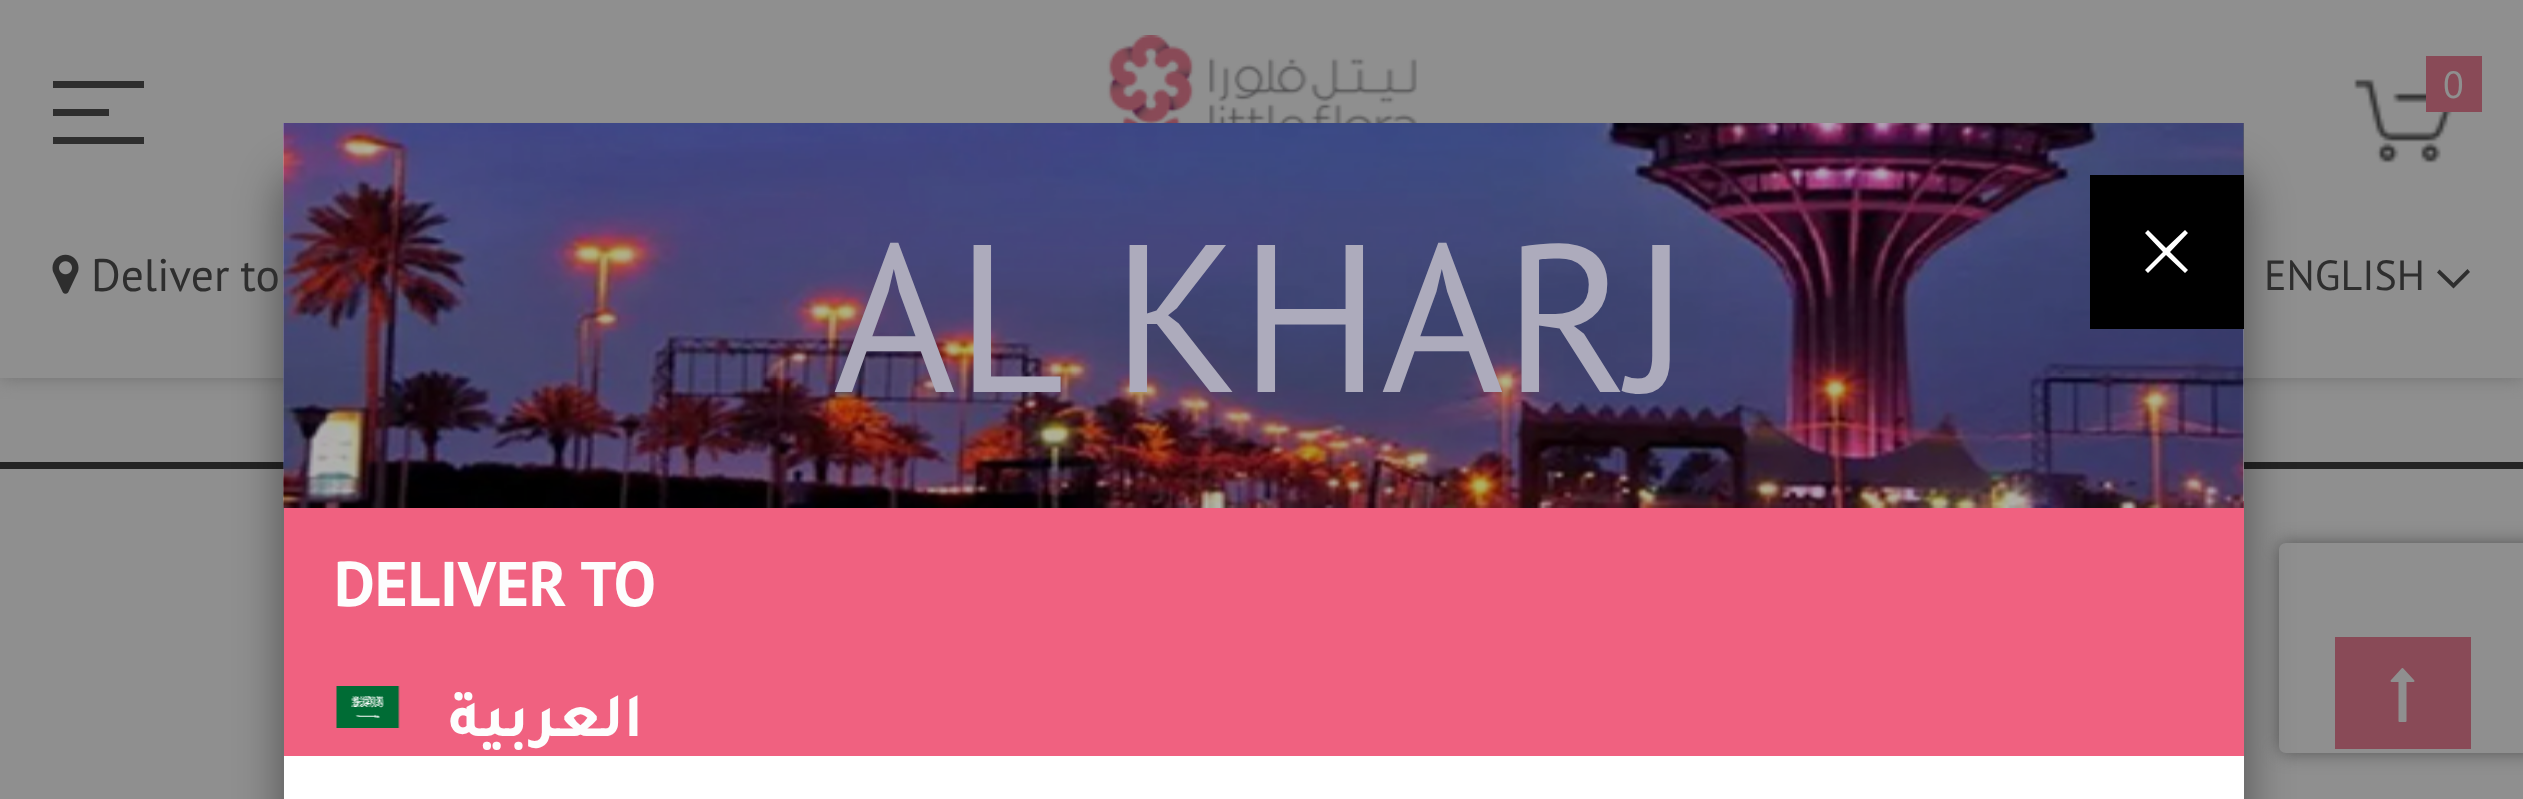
<svg xmlns="http://www.w3.org/2000/svg" width="2523" height="799">
<style>
.a{font:38px PT Sans;fill:#8f8f8f}
.b{font:45.5px PT Sans;fill:#2e2e2e}
.c{font:42px PT Sans;fill:#2e2e2e}
.d{font:210px PT Sans;fill:#adabbc}
.e{font:bold 63px PT Sans;fill:#fdfdfd}
.f{font:bold 63px Tajawal;direction:rtl;fill:#fdfdfd}
</style>
<defs>
<clipPath id="clip1"><path d="M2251 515h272v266h-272zm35 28h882c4 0 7 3 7 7v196c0 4-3 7-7 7h-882c-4 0-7-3-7-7v-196c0-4 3-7 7-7z" clip-rule="evenodd"/></clipPath>
</defs>
<rect width="100%" height="100%" fill="#8f8f8f"/>
<path fill="#717171" filter="blur(9px)" d="M0 0h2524v378H0z"/>
<path fill="#8f8f8f" d="M0 0h2523v378H0z"/>
<path fill="#2e2e2e" d="M53 81h91v7H53z"/>
<path fill="#2e2e2e" d="M53 137h91v7H53z"/>
<path fill="#2e2e2e" d="M53 109h56v7H53z"/>
<image href="1.png" x="1107" y="35" width="310" height="88"/>
<image href="2.png" x="2354" y="79" width="98" height="84"/>
<path fill="#894a57" d="M2426 56h56v56H2426z"/>
<image href="3.png" x="52" y="254" width="27" height="40"/>
<path fill="#2e2e2e" d="M2453.5 283l-14-13.5l-2.5 3l16.5 16l16.5-16.5l-2.5-3z"/>
<path fill="#242424" d="M0 462h2523v7H0z"/>
<g clip-path="url(#clip1)">
<rect fill="#565656" filter="blur(9px)" x="2279" y="543" width="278" height="210" rx="7"/>
</g>
<path fill="#894a57" d="M2335 637h136v112H2335z"/>
<image href="4.png" x="2390" y="668" width="25" height="54"/>
<rect fill="#00000059" filter="blur(21px)" x="277" y="168" width="1974" height="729" rx="35"/>
<path fill="#fff" d="M284 329h1960v470H284z"/>
<path fill="#f16682" d="M2243 501h1v7H2243z"/>
<image href="5.png" x="283" y="123" width="1961" height="385"/>
<path fill="#0000004d" d="M284 123h1960v385H284z"/>
<path fill="#f06180" d="M284 508h1960v248H284z"/>
<image href="6.png" x="336" y="686" width="64" height="42"/>
<path fill="#000" d="M2090 175h154v154H2090z"/>
<path fill="#fff" d="M2188 233l-3-3l-19 18l-18-18l-3 3l18 19l-18 18l3 3l18-18l19 18l3-3l-18-18z"/>
<text class="a" x="2443" y="98">0</text>
<text class="b" x="91" y="291" word-spacing="-1">Deliver to</text>
<text class="c" x="2264" y="290">ENGLISH</text>
<text class="d" x="833" y="392">AL KHARJ</text>
<text class="e" x="334" y="606">DELIVER TO</text>
<text class="f" x="643" y="736">العربية</text>
</svg>
